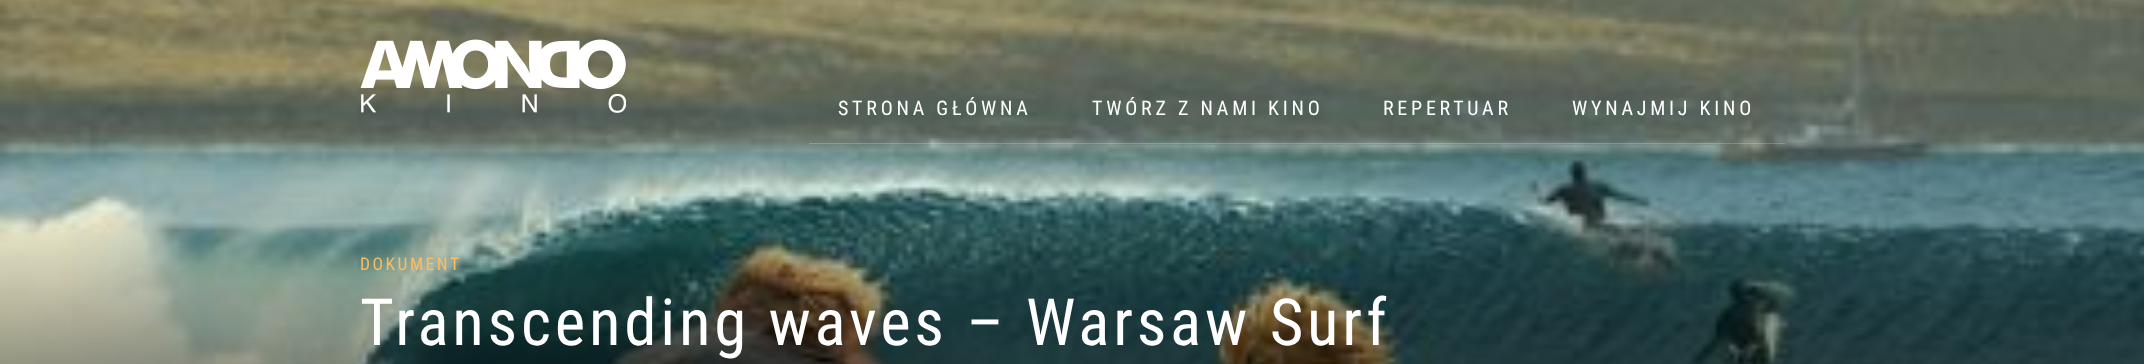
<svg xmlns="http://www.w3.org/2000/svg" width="2144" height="364">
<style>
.a{font:20px Roboto Condensed;letter-spacing:3.75px;fill:#fff}
.b{font:17.5px Roboto Condensed;letter-spacing:2.5px;fill:#fbbd61}
.c{font:65px Roboto Condensed;letter-spacing:3.75px;fill:#fff}
</style>
<rect width="100%" height="100%" fill="#fff"/>
<image href="2.png" x="0" y="0" width="2144" height="364"/>
<image href="1.png" x="360" y="39" width="266" height="74"/>
<path fill="#ffffff33" d="M809 143h976v1H809z"/>
<text class="a" x="838" y="115">STRONA GŁÓWNA</text>
<text class="a" x="1092" y="115">TWÓRZ Z NAMI KINO</text>
<text class="a" x="1383" y="115">REPERTUAR</text>
<text class="a" x="1572" y="115">WYNAJMIJ KINO</text>
<text class="b" x="360" y="270">DOKUMENT</text>
<text class="c" x="360" y="345">Transcending waves – Warsaw Surf</text>
</svg>
